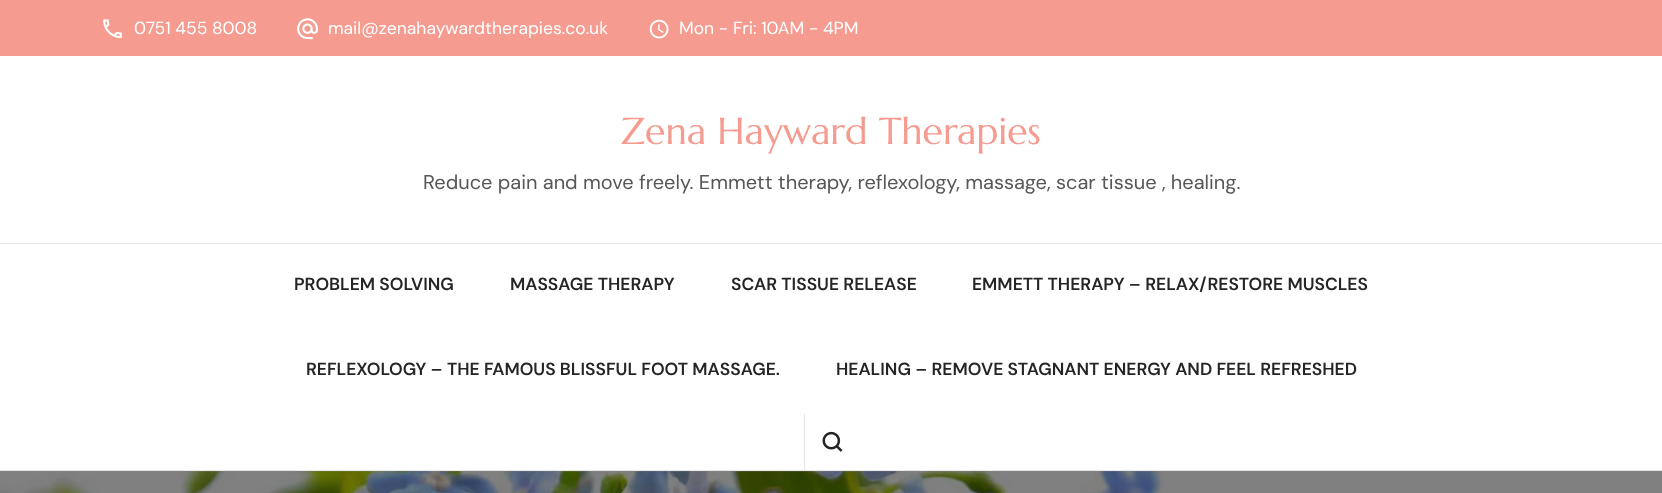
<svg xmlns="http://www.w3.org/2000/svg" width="1662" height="493">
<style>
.a{font:17.5px DM Sans;fill:#fff}
.b{font:37.5px Marcellus;fill:#f59b90}
.c{font:20px DM Sans;fill:#585656}
.d{font:600 17.5px DM Sans;fill:#262525}
</style>
<rect width="100%" height="100%" fill="#fff"/>
<path fill="#808080" d="M0 471h1662v22H0z"/>
<path fill="#f59b90" d="M0 0h1662v56H0z"/>
<image href="1.png" x="103" y="19" width="19" height="20"/>
<image href="2.png" x="297" y="18" width="21" height="22"/>
<image href="3.png" x="649" y="19" width="20" height="20"/>
<path fill="#e6e6e6" d="M0 243h1662v1H0z"/>
<path fill="#e6e6e6" d="M0 470h1662v1H0z"/>
<path fill="#e6e6e6" d="M804 414h1v56H804z"/>
<image href="4.png" x="822" y="431" width="21" height="21"/>
<image href="5.png" x="0" y="471" width="1164" height="22"/>
<text class="a" x="134" y="34">0751 455 8008</text>
<text class="a" x="328" y="34">mail@zenahaywardtherapies.co.uk</text>
<text class="a" x="679" y="34">Mon - Fri: 10AM - 4PM</text>
<text class="b" x="621" y="144">Zena Hayward Therapies</text>
<text class="c" x="423" y="189">Reduce pain and move freely. Emmett therapy, reflexology, massage, scar tissue , healing.</text>
<text class="d" x="294" y="290">PROBLEM SOLVING</text>
<text class="d" x="510" y="290">MASSAGE THERAPY</text>
<text class="d" x="731" y="290">SCAR TISSUE RELEASE</text>
<text class="d" x="972" y="290">EMMETT THERAPY – RELAX/RESTORE MUSCLES</text>
<text class="d" x="306" y="375">REFLEXOLOGY – THE FAMOUS BLISSFUL FOOT MASSAGE.</text>
<text class="d" x="836" y="375">HEALING – REMOVE STAGNANT ENERGY AND FEEL REFRESHED</text>
</svg>
